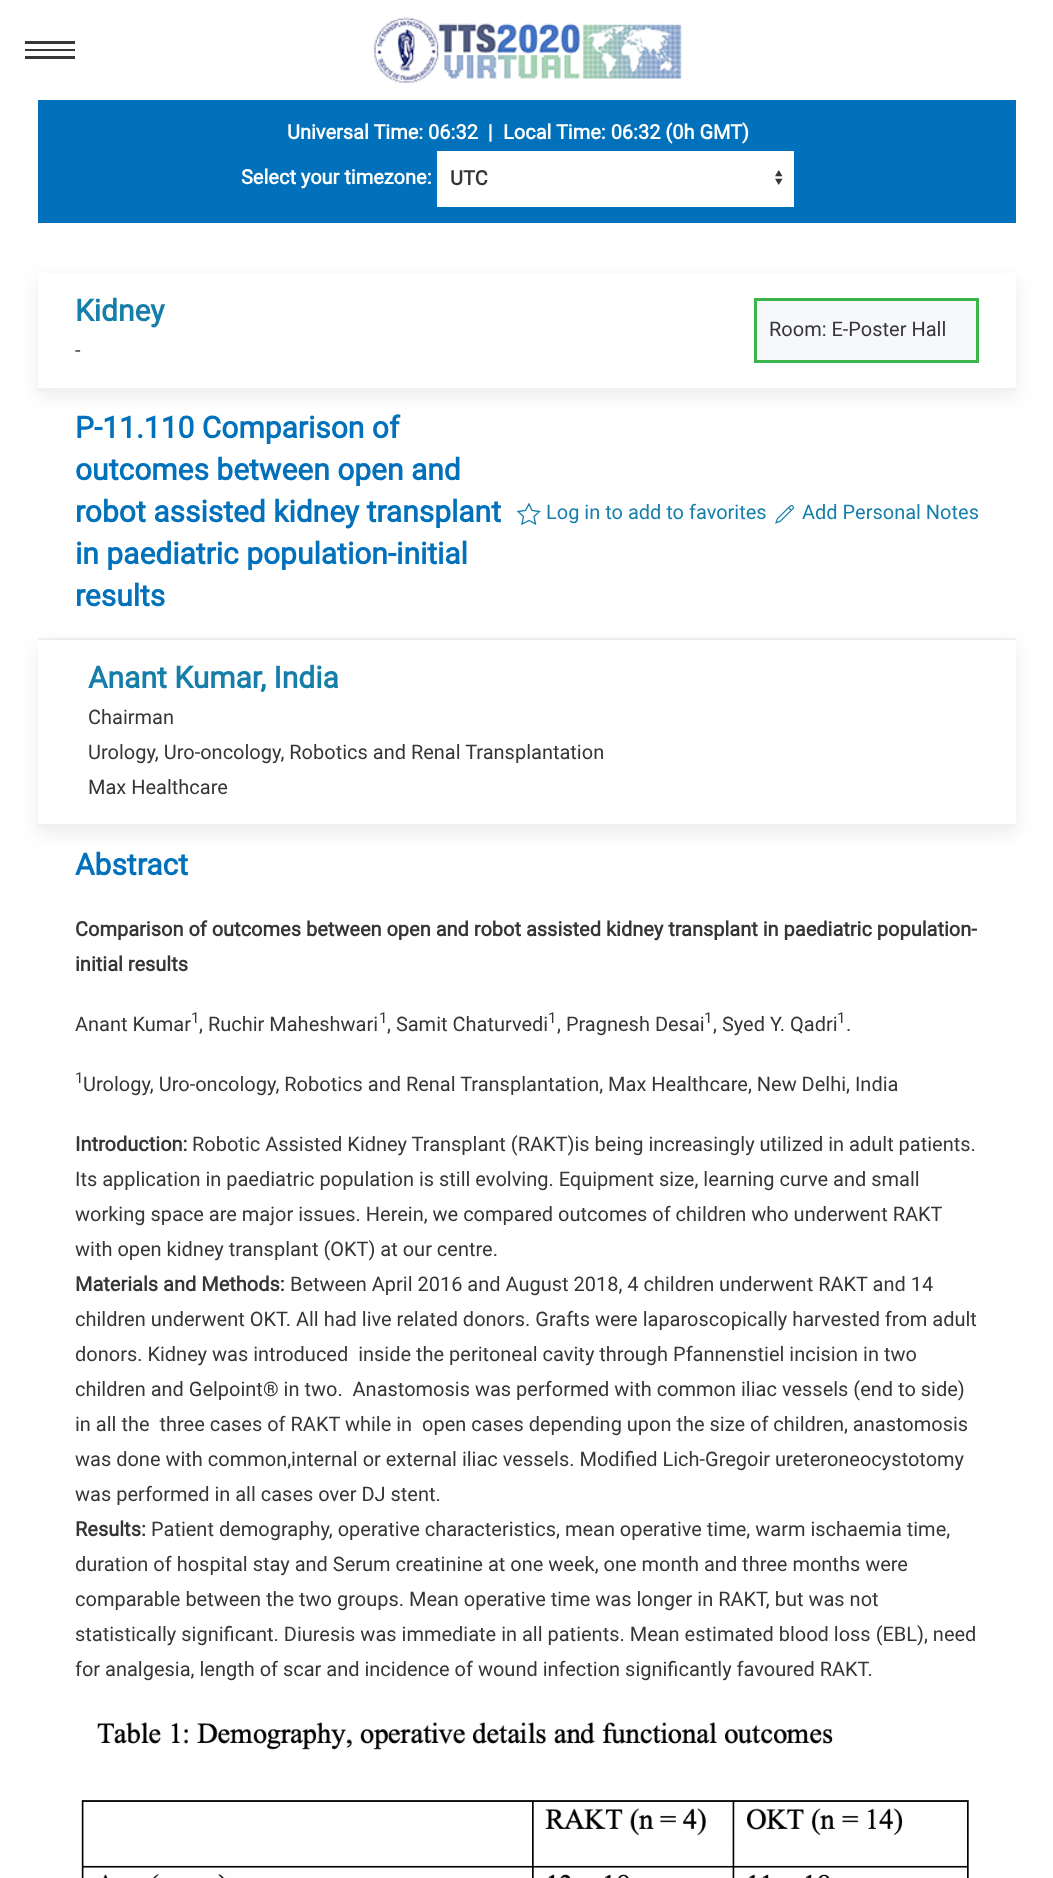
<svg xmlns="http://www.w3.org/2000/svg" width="1053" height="1878">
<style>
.a{font:bold 20px Roboto;fill:#fff}
.b{font:bold 20px Roboto;fill:#363638}
.c{font:bold 30px Roboto;fill:#167fa9}
.d{font:20px Roboto;fill:#363638}
.e{font:bold 30px Roboto;fill:#0071ba}
.f{font:20px Roboto;fill:#167fa9}
.g{font:15px Roboto;fill:#363638}
</style>
<defs>
<clipPath id="clip1"><path d="M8 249h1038v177h-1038zm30 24h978v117h-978z" clip-rule="evenodd"/></clipPath>
</defs>
<rect width="100%" height="100%" fill="#fff"/>
<path fill="#363638" d="M25 41h50v3H25z"/>
<path fill="#363638" d="M25 49h50v2H25z"/>
<path fill="#363638" d="M25 56h50v3H25z"/>
<image href="1.png" x="373" y="17" width="309" height="67"/>
<path fill="#0071ba" d="M38 100h978v123H38z"/>
<path fill="#fff" d="M437 151h357v56H437z"/>
<image href="2.png" x="775" y="170" width="8" height="15"/>
<g clip-path="url(#clip1)">
<path fill="#00000014" filter="blur(9.5px)" d="M38 279h978v117H38z"/>
</g>
<path fill="#eff2f4" d="M38 388h978v3H38z"/>
<path fill="#f6f8fa" stroke="#39b54a" stroke-width="3" d="M755.5 299.5h222v62H755.5z"/>
<path fill="#eff2f4" d="M38 638h978v2H38z"/>
<path fill="none" stroke="#167fa9" stroke-width="1.3" d="M529 504l3 6.5l7.5 1l-5.5 5l1.5 7.5l-6.5-3.5l-7 3.5l1.5-7.5l-5.5-5l7.5-1z"/>
<image href="3.png" x="775" y="505" width="19" height="19"/>
<path fill="#00000014" filter="blur(9.5px)" d="M38 646h978v187H38z"/>
<path fill="#fff" d="M38 640h978v184H38z"/>
<path fill="#eff2f4" d="M38 824h978v3H38z"/>
<image href="4.png" x="81" y="1722" width="888" height="156"/>
<text class="a" xml:space="preserve" x="287" y="139">Universal Time: 06:32  |</text>
<text class="a" x="503" y="139">Local Time: 06:32 (0h GMT)</text>
<text class="a" x="241" y="184">Select your timezone:</text>
<text class="b" x="450" y="185">UTC</text>
<text class="c" x="75" y="321">Kidney</text>
<text class="d" x="75" y="357">-</text>
<text class="d" x="769" y="336">Room: E-Poster Hall</text>
<text class="e" x="75" y="438">P-11.110 Comparison of</text>
<text class="e" x="75" y="480">outcomes between open and</text>
<text class="e" x="75" y="522">robot assisted kidney transplant</text>
<text class="e" x="75" y="564">in paediatric population-initial</text>
<text class="e" x="75" y="606">results</text>
<text class="f" x="546" y="519">Log in to add to favorites</text>
<text class="f" x="802" y="519">Add Personal Notes</text>
<text class="c" x="88" y="688">Anant Kumar, India</text>
<text class="d" x="88" y="724">Chairman</text>
<text class="d" x="88" y="759">Urology, Uro-oncology, Robotics and Renal Transplantation</text>
<text class="d" x="88" y="794">Max Healthcare</text>
<text class="e" x="75" y="875">Abstract</text>
<text class="b" x="75" y="936">Comparison of outcomes between open and robot assisted kidney transplant in paediatric population-</text>
<text class="b" x="75" y="971">initial results</text>
<text class="d" x="75" y="1031">Anant Kumar</text>
<text class="g" x="191" y="1023">1</text>
<text class="d" x="199" y="1031">, Ruchir Maheshwari</text>
<text class="g" x="379" y="1023">1</text>
<text class="d" x="387" y="1031">, Samit Chaturvedi</text>
<text class="g" x="548" y="1023">1</text>
<text class="d" x="557" y="1031">, Pragnesh Desai</text>
<text class="g" x="704" y="1023">1</text>
<text class="d" x="713" y="1031">, Syed Y. Qadri</text>
<text class="g" x="837" y="1023">1</text>
<text class="d" x="846" y="1031">.</text>
<text class="g" x="75" y="1083">1</text>
<text class="d" x="83" y="1091">Urology, Uro-oncology, Robotics and Renal Transplantation, Max Healthcare, New Delhi, India</text>
<text class="b" x="75" y="1151">Introduction:</text>
<text class="d" x="192" y="1151">Robotic Assisted Kidney Transplant (RAKT)is being increasingly utilized in adult patients.</text>
<text class="d" x="75" y="1186">Its application in paediatric population is still evolving. Equipment size, learning curve and small</text>
<text class="d" x="75" y="1221">working space are major issues. Herein, we compared outcomes of children who underwent RAKT</text>
<text class="d" x="75" y="1256">with open kidney transplant (OKT) at our centre.</text>
<text class="b" x="75" y="1291">Materials and Methods:</text>
<text class="d" x="290" y="1291">Between April 2016 and August 2018, 4 children underwent RAKT and 14</text>
<text class="d" x="75" y="1326">children underwent OKT. All had live related donors. Grafts were laparoscopically harvested from adult</text>
<text class="d" xml:space="preserve" x="75" y="1361">donors. Kidney was introduced  inside the peritoneal cavity through Pfannenstiel incision in two</text>
<text class="d" xml:space="preserve" x="75" y="1396">children and Gelpoint® in two.  Anastomosis was performed with common iliac vessels (end to side)</text>
<text class="d" xml:space="preserve" x="75" y="1431">in all the  three cases of RAKT while in  open cases depending upon the size of children, anastomosis</text>
<text class="d" x="75" y="1466">was done with common,internal or external iliac vessels. Modified Lich-Gregoir ureteroneocystotomy</text>
<text class="d" x="75" y="1501">was performed in all cases over DJ stent.</text>
<text class="b" x="75" y="1536">Results:</text>
<text class="d" x="151" y="1536">Patient demography, operative characteristics, mean operative time, warm ischaemia time,</text>
<text class="d" x="75" y="1571">duration of hospital stay and Serum creatinine at one week, one month and three months were</text>
<text class="d" x="75" y="1606">comparable between the two groups. Mean operative time was longer in RAKT, but was not</text>
<text class="d" x="75" y="1641">statistically significant. Diuresis was immediate in all patients. Mean estimated blood loss (EBL), need</text>
<text class="d" x="75" y="1676">for analgesia, length of scar and incidence of wound infection significantly favoured RAKT.</text>
</svg>
